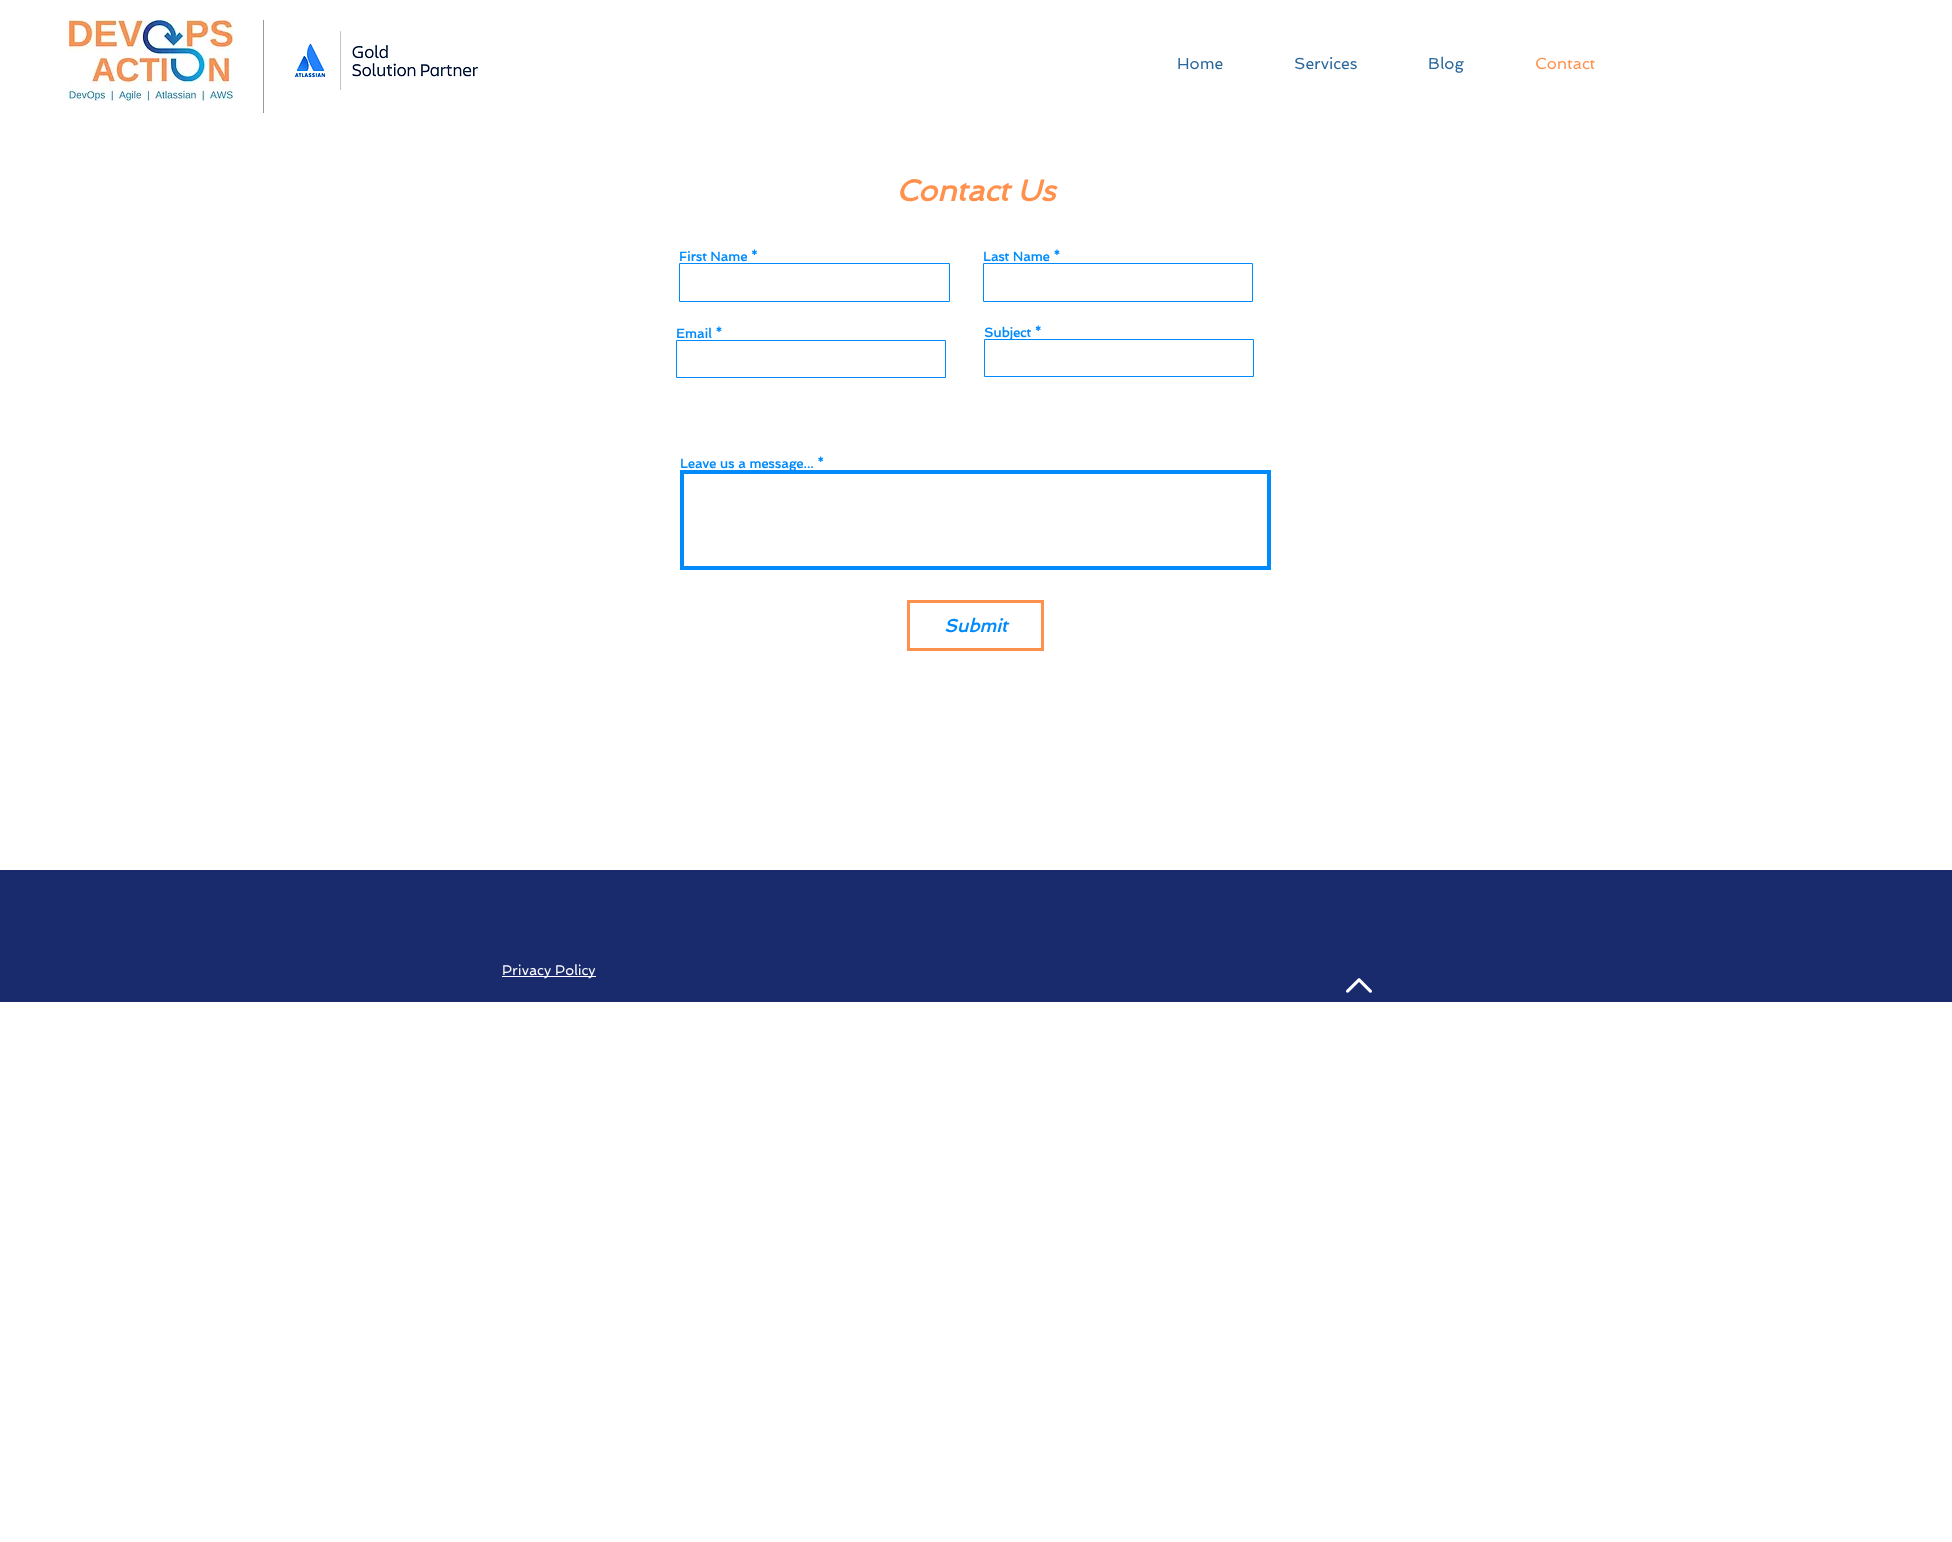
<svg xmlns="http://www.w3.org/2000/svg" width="1952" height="1542">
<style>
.a{font:16px Spinnaker;fill:#2b689c}
.b{font:16px Spinnaker;fill:#ff914d}
.c{font:italic bold 30px Spinnaker;fill:#ff914d}
.d{font:bold 13px Spinnaker;fill:#008afc}
.e{font:italic bold 18px Spinnaker;fill:#008afc}
.f{font:14px Spinnaker;fill:#fff}
</style>
<rect width="100%" height="100%" fill="#fff"/>
<image href="1.png" x="69" y="20" width="164" height="81"/>
<path fill="#999997" d="M263 20h1v93H263z"/>
<image href="2.png" x="295" y="31" width="183" height="59"/>
<path fill="none" stroke="#008afc" d="M679.5 263.5h270v38H679.5z"/>
<path fill="none" stroke="#008afc" d="M983.5 263.5h269v38H983.5z"/>
<path fill="none" stroke="#008afc" d="M676.5 340.5h269v37H676.5z"/>
<path fill="none" stroke="#008afc" d="M984.5 339.5h269v37H984.5z"/>
<path fill="none" stroke="#008afc" stroke-width="4" d="M682 472h587v96H682z"/>
<path fill="none" stroke="#ff914d" stroke-width="3" d="M908.5 601.5h134v48H908.5z"/>
<path fill="#1a2b6d" d="M0 870h1952v132H0z"/>
<path fill="#fff" d="M502 976h94v1H502z"/>
<image href="3.png" x="1346" y="978" width="26" height="15"/>
<text class="a" x="1177" y="69">Home</text>
<text class="a" x="1294" y="69">Services</text>
<text class="a" x="1428" y="69">Blog</text>
<text class="b" x="1535" y="69">Contact</text>
<text class="c" x="896" y="201">Contact Us</text>
<text class="d" x="679" y="261">First Name *</text>
<text class="d" x="983" y="261">Last Name *</text>
<text class="d" x="676" y="338">Email *</text>
<text class="d" x="984" y="337">Subject *</text>
<text class="d" x="680" y="468">Leave us a message... *</text>
<text class="e" x="944" y="632">Submit</text>
<text class="f" x="502" y="975">Privacy Policy</text>
</svg>
